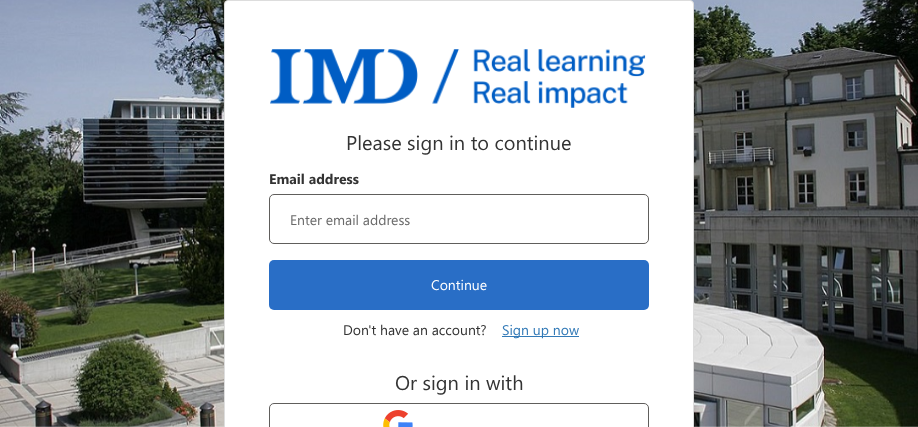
<svg xmlns="http://www.w3.org/2000/svg" width="918" height="427">
<style>
.a{font:20px Segoe UI;fill:#333}
.b{font:bold 14px Segoe UI;fill:#333}
.c{font:14px Segoe UI;fill:#6a6a6a}
.d{font:14px Segoe UI;fill:#fff}
.e{font:14px Segoe UI;fill:#333}
.f{font:14px Segoe UI;fill:#337ab7}
</style>
<rect width="100%" height="100%" fill="#fff"/>
<image href="1.png" x="0" y="0" width="918" height="427"/>
<rect fill="#fff" stroke="#ddd" x="224.5" y="0.5" width="469" height="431" rx="3.5"/>
<image href="2.png" x="270" y="49" width="376" height="59"/>
<rect fill="none" stroke="#605e5c" x="269.5" y="194.5" width="379" height="49" rx="4.5"/>
<rect fill="#296ec6" x="269" y="260" width="380" height="50" rx="5"/>
<path fill="#337ab7" d="M502 336h77v1H502z"/>
<image href="3.png" x="383" y="410" width="30" height="17"/>
<rect fill="none" stroke="#605e5c" x="269.5" y="403.5" width="379" height="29" rx="4.5"/>
<text class="a" x="346" y="150">Please sign in to continue</text>
<text class="b" x="269" y="184">Email address</text>
<text class="c" x="290" y="225">Enter email address</text>
<text class="d" x="431" y="290">Continue</text>
<text class="e" x="343" y="335">Don't have an account?</text>
<text class="f" x="502" y="335">Sign up now</text>
<text class="a" x="395" y="390">Or sign in with</text>
</svg>
